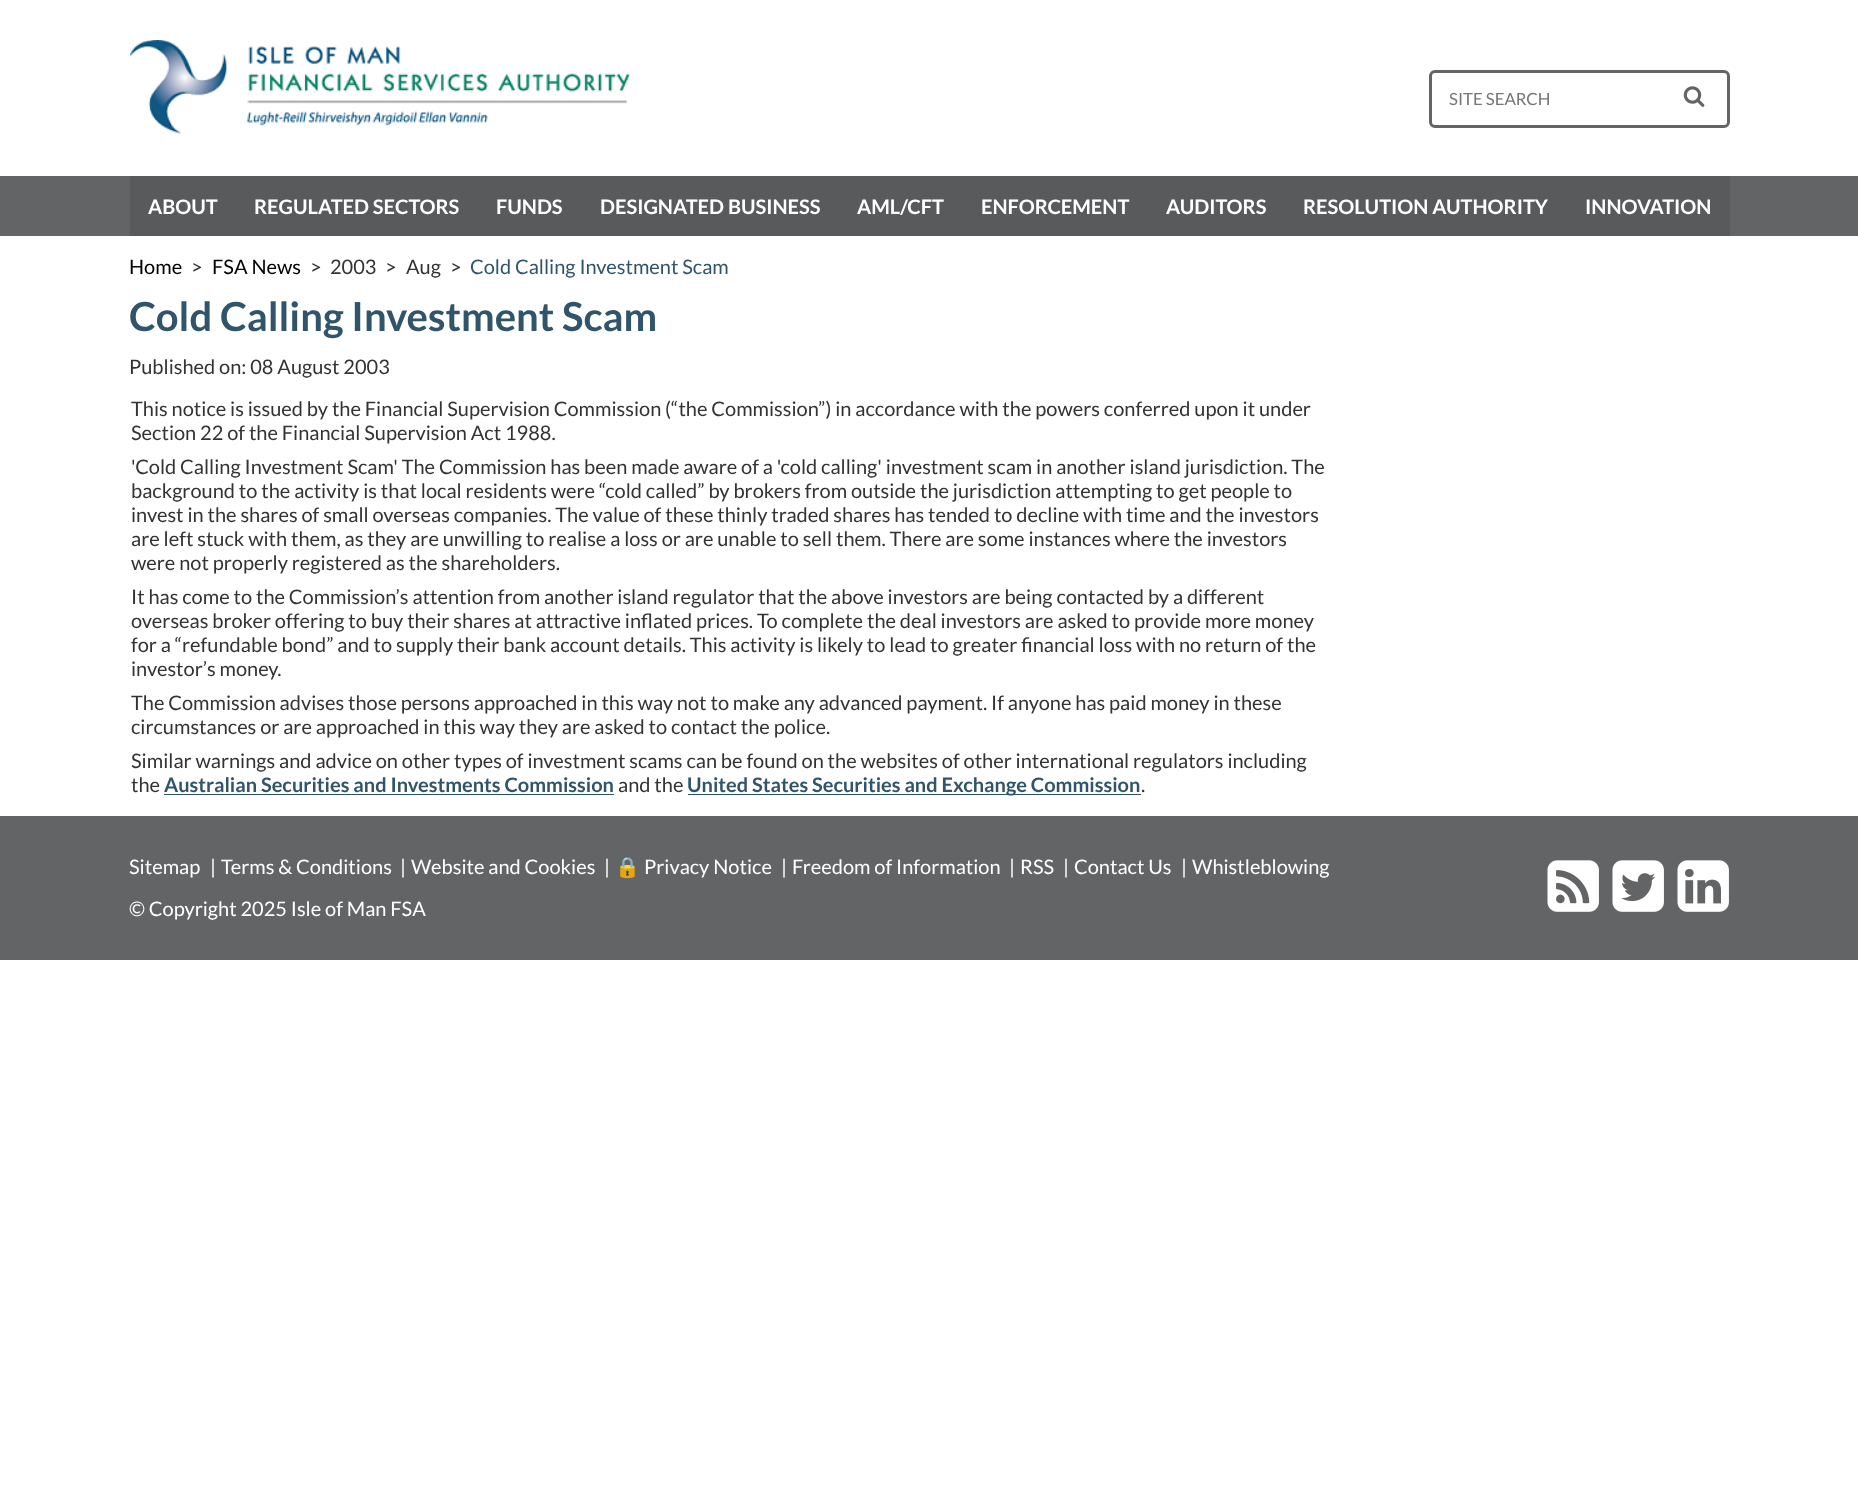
<svg xmlns="http://www.w3.org/2000/svg" width="1858" height="1499">
<style>
.a{font:16.75px Lato;fill:#757575}
.b{font:bold 20px Lato;fill:#fff}
.c{font:20px Lato;fill:#000}
.d{font:20px Lato;fill:#333}
.e{font:20px Lato;fill:#30556a}
.f{font:bold 40px Lato;fill:#30556a}
.g{font:bold 20px Lato;fill:#30556a}
.h{font:20px Lato;fill:#fff}
.i{font:20px Noto Color Emoji;fill:#fff}
</style>
<rect width="100%" height="100%" fill="#fff"/>
<image href="1.png" x="130" y="40" width="500" height="94"/>
<rect fill="none" stroke="#636466" stroke-width="3" x="1430.5" y="71.5" width="298" height="55" rx="4.5"/>
<image href="2.png" x="1683" y="86" width="22" height="21"/>
<path fill="#636466" d="M0 176h1858v60H0z"/>
<path fill="#595a5c" d="M130 176h1600v60H130z"/>
<path fill="#30556a" d="M164 794h450v1H164z"/>
<path fill="#30556a" d="M688 794h453v1H688z"/>
<path fill="#636466" d="M0 816h1858v144H0z"/>
<image href="3.png" x="1547" y="860" width="52" height="52"/>
<image href="4.png" x="1612" y="860" width="52" height="52"/>
<image href="5.png" x="1677" y="860" width="52" height="52"/>
<text class="a" x="1449" y="105">SITE SEARCH</text>
<text class="b" x="148" y="214">ABOUT</text>
<text class="b" x="254" y="214">REGULATED SECTORS</text>
<text class="b" x="496" y="214">FUNDS</text>
<text class="b" x="600" y="214">DESIGNATED BUSINESS</text>
<text class="b" x="857" y="214">AML/CFT</text>
<text class="b" x="981" y="214">ENFORCEMENT</text>
<text class="b" x="1166" y="214">AUDITORS</text>
<text class="b" x="1303" y="214">RESOLUTION AUTHORITY</text>
<text class="b" x="1585" y="214">INNOVATION</text>
<text class="c" x="129" y="274">Home</text>
<text class="d" x="191" y="274">&gt;</text>
<text class="c" x="212" y="274">FSA News</text>
<text class="d" x="310" y="274">&gt;</text>
<text class="d" x="330" y="274">2003</text>
<text class="d" x="385" y="274">&gt;</text>
<text class="d" x="406" y="274">Aug</text>
<text class="d" x="450" y="274">&gt;</text>
<text class="e" x="470" y="274">Cold Calling Investment Scam</text>
<text class="f" x="129" y="331">Cold Calling Investment Scam</text>
<text class="d" x="129" y="374">Published on: 08 August 2003</text>
<text class="d" x="131" y="416">This notice is issued by the Financial Supervision Commission (“the Commission”) in accordance with the powers conferred upon it under</text>
<text class="d" x="131" y="440">Section 22 of the Financial Supervision Act 1988.</text>
<text class="d" x="131" y="474">'Cold Calling Investment Scam' The Commission has been made aware of a 'cold calling' investment scam in another island jurisdiction. The</text>
<text class="d" x="131" y="498">background to the activity is that local residents were “cold called” by brokers from outside the jurisdiction attempting to get people to</text>
<text class="d" x="131" y="522">invest in the shares of small overseas companies. The value of these thinly traded shares has tended to decline with time and the investors</text>
<text class="d" x="131" y="546">are left stuck with them, as they are unwilling to realise a loss or are unable to sell them. There are some instances where the investors</text>
<text class="d" x="131" y="570">were not properly registered as the shareholders.</text>
<text class="d" x="131" y="604">It has come to the Commission’s attention from another island regulator that the above investors are being contacted by a different</text>
<text class="d" x="131" y="628">overseas broker offering to buy their shares at attractive inflated prices. To complete the deal investors are asked to provide more money</text>
<text class="d" x="131" y="652">for a “refundable bond” and to supply their bank account details. This activity is likely to lead to greater financial loss with no return of the</text>
<text class="d" x="131" y="676">investor’s money.</text>
<text class="d" x="131" y="710">The Commission advises those persons approached in this way not to make any advanced payment. If anyone has paid money in these</text>
<text class="d" x="131" y="734">circumstances or are approached in this way they are asked to contact the police.</text>
<text class="d" x="131" y="768">Similar warnings and advice on other types of investment scams can be found on the websites of other international regulators including</text>
<text class="d" x="131" y="792">the</text>
<text class="g" x="164" y="792">Australian Securities and Investments Commission</text>
<text class="d" x="618" y="792">and the</text>
<text class="g" x="687" y="792">United States Securities and Exchange Commission</text>
<text class="d" x="1141" y="792">.</text>
<text class="h" x="129" y="874">Sitemap</text>
<text class="h" x="210" y="874">|</text>
<text class="h" x="221" y="874">Terms &amp; Conditions</text>
<text class="h" x="400" y="874">|</text>
<text class="h" x="411" y="874">Website and Cookies</text>
<text class="h" x="604" y="874">|</text>
<text class="i" x="615" y="874">🔒</text>
<text class="h" x="644" y="874">Privacy Notice</text>
<text class="h" x="781" y="874">|</text>
<text class="h" x="792" y="874">Freedom of Information</text>
<text class="h" x="1009" y="874">|</text>
<text class="h" x="1020" y="874">RSS</text>
<text class="h" x="1063" y="874">|</text>
<text class="h" x="1074" y="874">Contact Us</text>
<text class="h" x="1181" y="874">|</text>
<text class="h" x="1192" y="874">Whistleblowing</text>
<text class="h" x="129" y="916">© Copyright 2025 Isle of Man FSA</text>
</svg>
